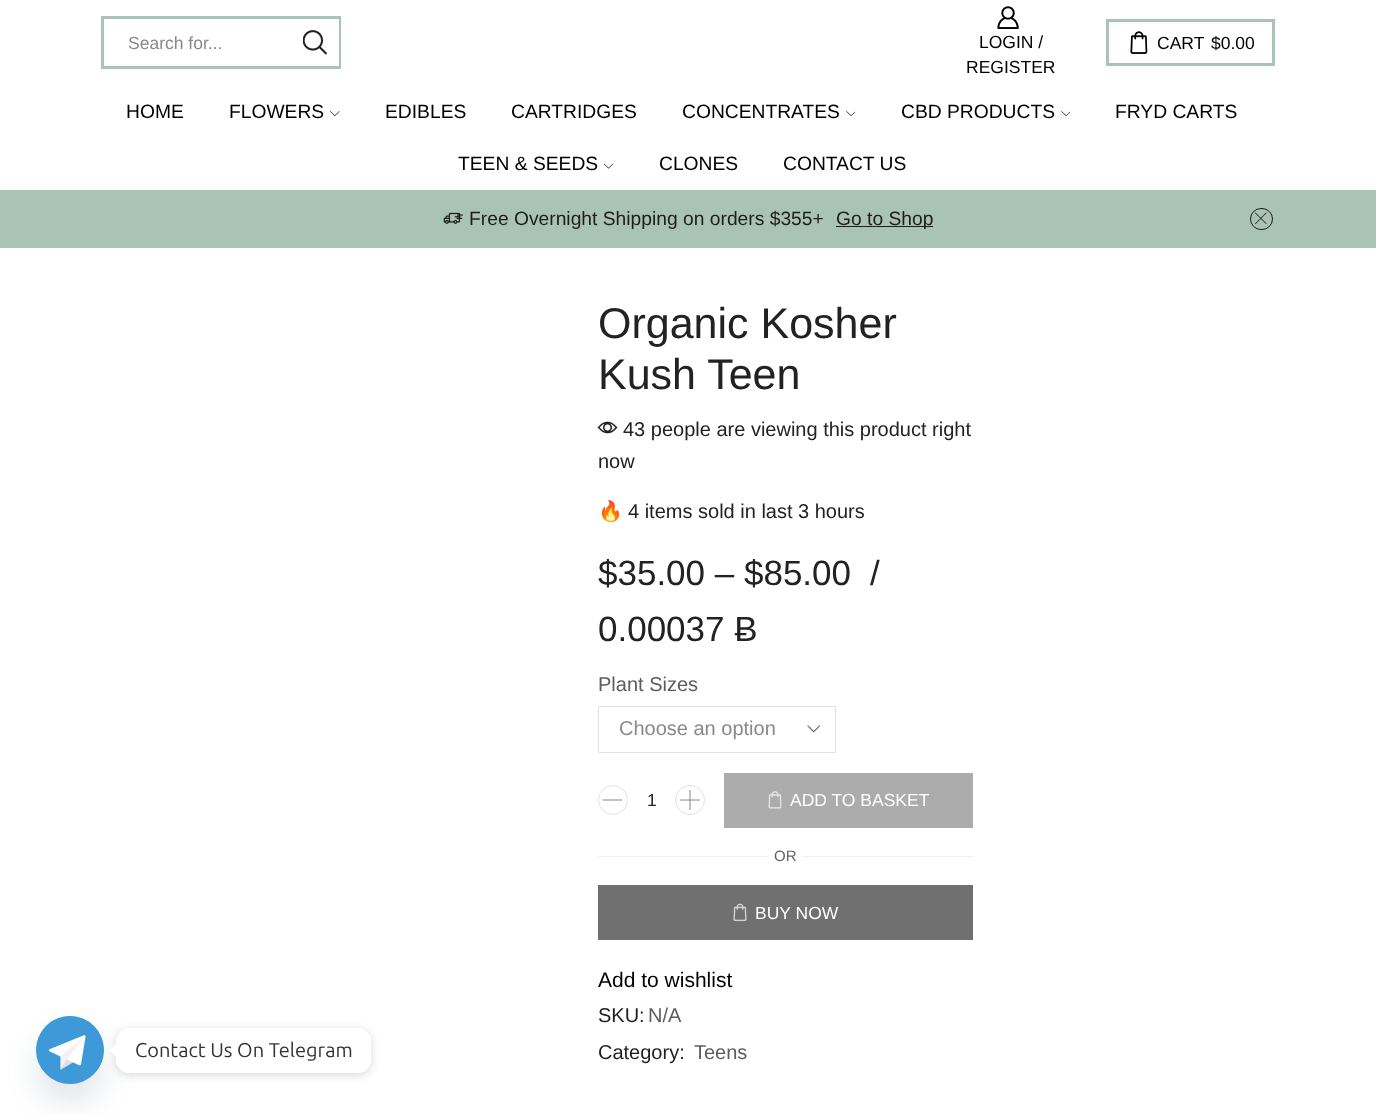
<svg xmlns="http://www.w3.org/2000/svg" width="1376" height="1114">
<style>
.a{font:17.5px Liberation Sans;fill:#888}
.b{font:17.5px Liberation Sans;fill:#000}
.c{font:19.25px Liberation Sans;fill:#000}
.d{font:19.25px Liberation Sans;fill:#1e1e1c}
.e{font:43px Liberation Sans;fill:#222}
.f{font:20px Liberation Sans;fill:#222}
.g{font:20px Noto Color Emoji;fill:#222}
.h{font:35px Liberation Sans;fill:#222}
.i{font:20px Liberation Sans;fill:#5c5c5c}
.j{font:20px Liberation Sans;fill:#888}
.k{font:17.5px Liberation Sans;fill:#222}
.l{font:17.5px Liberation Sans;fill:#fff}
.m{font:15px Liberation Sans;fill:#646464}
.n{font:21px Liberation Sans;fill:#000}
.o{font:20px Liberation Sans;fill:#1e1e1c}
.p{font:20px Ubuntu;fill:#333}
</style>
<rect width="100%" height="100%" fill="#fff"/>
<path fill="none" stroke="#a9c4b2" stroke-width="3" d="M102.5 17.5h237v50H102.5z"/>
<path fill="#fff" d="M338 19h1v47H338z"/>
<image href="1.png" x="303" y="30" width="24" height="25"/>
<image href="2.png" x="997" y="6" width="22" height="23"/>
<path fill="none" stroke="#a9c4b2" stroke-width="3" d="M1107.5 20.5h166v44H1107.5z"/>
<image href="3.png" x="1130" y="31" width="18" height="23"/>
<image href="4.png" x="330" y="111" width="10" height="5"/>
<image href="5.png" x="846" y="111" width="9" height="5"/>
<image href="5.png" x="1061" y="111" width="9" height="5"/>
<image href="6.png" x="604" y="163" width="10" height="6"/>
<path fill="#a9c4b2" d="M0 190h1376v58H0z"/>
<image href="7.png" x="443" y="212" width="20" height="12"/>
<path fill="#1e1e1c" d="M836 226h97v1H836z"/>
<rect fill="none" stroke="#1e1e1c" x="1250.5" y="208.5" width="22" height="21" rx="10.5"/>
<image href="8.png" x="1255" y="212" width="12" height="13"/>
<image href="9.png" x="597" y="421" width="21" height="13"/>
<image href="10.png" x="807" y="725" width="13" height="8"/>
<path fill="none" stroke="#e1e1e1" d="M598.5 706.5h237v46H598.5z"/>
<circle fill="none" stroke="#e1e1e1" cx="613" cy="800" r="14.5"/>
<path fill="#888" d="M622 799.5h-19.5c0 .5 0 1 .5 1h19l.5-.5z"/>
<circle fill="none" stroke="#e1e1e1" cx="690" cy="800" r="14.5"/>
<image href="11.png" x="680" y="790" width="20" height="20"/>
<path fill="#acacac" d="M724 773h249v55H724z"/>
<image href="12.png" x="768" y="791" width="14" height="18"/>
<path fill="#f0f0f0" d="M598 856h170v1H598z"/>
<path fill="#f0f0f0" d="M803 856h170v1H803z"/>
<path fill="#707070" d="M598 885h375v55H598z"/>
<image href="13.png" x="733" y="903" width="14" height="19"/>
<rect fill="#49687e29" filter="blur(15px)" x="36" y="1036" width="68" height="68" rx="34"/>
<circle fill="#3e99d8" cx="70" cy="1050" r="34"/>
<image href="14.png" x="36" y="1016" width="68" height="68"/>
<rect fill="#00000026" filter="blur(5px)" x="116" y="1030" width="255" height="45" rx="13"/>
<rect fill="#fff" x="116" y="1028" width="255" height="45" rx="13"/>
<path fill="#fff" d="M116 1044v12.5l-6-6z"/>
<text class="a" x="128" y="49">Search for...</text>
<text class="b" x="979" y="48">LOGIN /</text>
<text class="b" x="966" y="73">REGISTER</text>
<text class="b" x="1157" y="49">CART</text>
<text class="b" x="1211" y="49">$0.00</text>
<text class="c" x="126" y="118">HOME</text>
<text class="c" x="229" y="118">FLOWERS</text>
<text class="c" x="385" y="118">EDIBLES</text>
<text class="c" x="511" y="118">CARTRIDGES</text>
<text class="c" x="682" y="118">CONCENTRATES</text>
<text class="c" x="901" y="118">CBD PRODUCTS</text>
<text class="c" x="1115" y="118">FRYD CARTS</text>
<text class="c" x="458" y="170">TEEN &amp; SEEDS</text>
<text class="c" x="659" y="170">CLONES</text>
<text class="c" x="783" y="170">CONTACT US</text>
<text class="d" x="469" y="225">Free Overnight Shipping on orders $355+</text>
<text class="d" x="836" y="225">Go to Shop</text>
<text class="e" x="598" y="338">Organic Kosher</text>
<text class="e" x="598" y="389">Kush Teen</text>
<text class="f" x="623" y="436">43 people are viewing this product right</text>
<text class="f" x="598" y="468">now</text>
<text class="g" x="598" y="518">🔥</text>
<text class="f" x="628" y="518">4 items sold in last 3 hours</text>
<text class="h" x="598" y="585">$35.00 – $85.00</text>
<text class="h" x="870" y="585">/</text>
<text class="h" x="598" y="641">0.00037 Ƀ</text>
<text class="i" x="598" y="691">Plant Sizes</text>
<text class="j" x="619" y="735">Choose an option</text>
<text class="k" x="647" y="806">1</text>
<text class="l" x="790" y="806">ADD TO BASKET</text>
<text class="m" x="774" y="861">OR</text>
<text class="l" x="755" y="919">BUY NOW</text>
<text class="n" x="598" y="987">Add to wishlist</text>
<text class="o" x="598" y="1022">SKU:</text>
<text class="i" x="648" y="1022">N/A</text>
<text class="o" x="598" y="1059">Category:</text>
<text class="i" x="694" y="1059">Teens</text>
<text class="p" x="135" y="1057">Contact Us On Telegram</text>
</svg>
